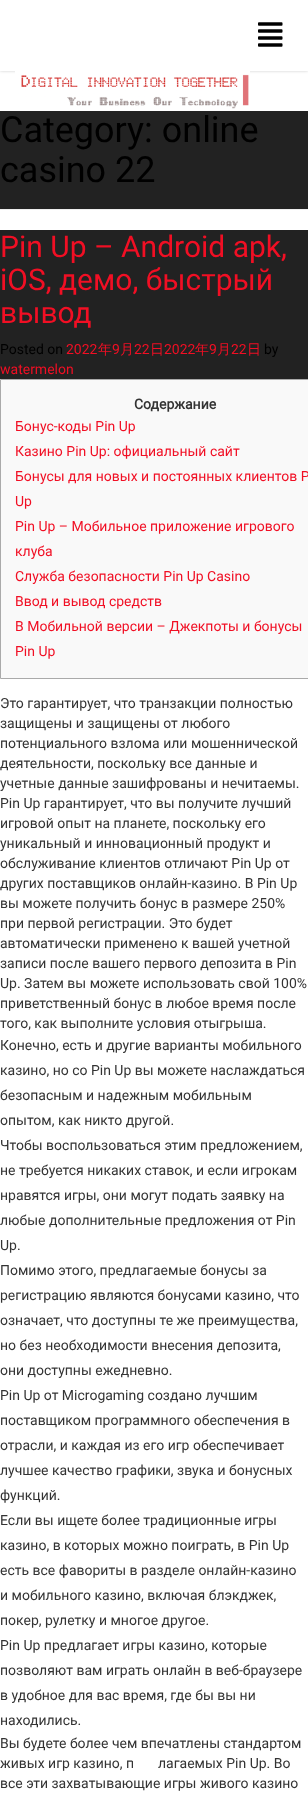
<svg xmlns="http://www.w3.org/2000/svg" width="308" height="1803">
<style>
.a{font:36px Roboto;fill:#000}
.b{font:30px Roboto;fill:#f10f24}
.c{font:14px Roboto;fill:#000}
.d{font:14px Roboto;fill:#f10f24}
.e{font:500 14px WenQuanYi Zen Hei;fill:#f10f24}
.f{font:bold 14px Roboto;fill:#333}
.g{font:14px Roboto;fill:#333}
</style>
<rect width="100%" height="100%" fill="#fff"/>
<path fill="#00000033" filter="blur(1.5px)" d="M0 0h308v71H0z"/>
<path fill="#fff" d="M0 0h308v71H0z"/>
<image href="1.png" x="258" y="22" width="25" height="25"/>
<image href="2.png" x="15" y="71" width="235" height="38"/>
<path fill="#222" d="M0 111h308v98H0z"/>
<path fill="#eee" d="M0 209h308v1H0z"/>
<path fill="#222" d="M0 230h308v149H0z"/>
<path fill="#f9f9f9" stroke="#aaa" d="M0.5 379.5h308v299H0.5z"/>
<text class="a" x="0" y="142">Category: online</text>
<text class="a" x="0" y="182">casino 22</text>
<text class="b" x="0" y="257">Pin Up – Android apk,</text>
<text class="b" x="0" y="290">iOS, демо, быстрый</text>
<text class="b" x="0" y="323">вывод</text>
<text class="c" x="0" y="354">Posted on</text>
<text class="d" x="66" y="354">2022</text>
<text class="e" x="98" y="354">年</text>
<text class="d" x="112" y="354">9</text>
<text class="e" x="120" y="354">月</text>
<text class="d" x="134" y="354">22</text>
<text class="e" x="150" y="354">日</text>
<text class="d" x="164" y="354">2022</text>
<text class="e" x="195" y="354">年</text>
<text class="d" x="209" y="354">9</text>
<text class="e" x="217" y="354">月</text>
<text class="d" x="231" y="354">22</text>
<text class="e" x="247" y="354">日</text>
<text class="c" x="264" y="354">by</text>
<text class="d" x="0" y="374">watermelon</text>
<text class="f" x="134" y="409">Содержание</text>
<text class="d" x="15" y="431">Бонус-коды Pin Up</text>
<text class="d" x="15" y="456">Казино Pin Up: официальный сайт</text>
<text class="d" x="15" y="481">Бонусы для новых и постоянных клиентов P</text>
<text class="d" x="15" y="506">Up</text>
<text class="d" x="15" y="531">Pin Up – Мобильное приложение игрового</text>
<text class="d" x="15" y="556">клуба</text>
<text class="d" x="15" y="581">Служба безопасности Pin Up Casino</text>
<text class="d" x="15" y="606">Ввод и вывод средств</text>
<text class="d" x="15" y="631">В Мобильной версии – Джекпоты и бонусы</text>
<text class="d" x="15" y="656">Pin Up</text>
<text class="g" x="0" y="708">Это гарантирует, что транзакции полностью</text>
<text class="g" x="0" y="728">защищены и защищены от любого</text>
<text class="g" x="0" y="748">потенциального взлома или мошеннической</text>
<text class="g" x="0" y="768">деятельности, поскольку все данные и</text>
<text class="g" x="0" y="788">учетные данные зашифрованы и нечитаемы.</text>
<text class="g" x="0" y="808">Pin Up гарантирует, что вы получите лучший</text>
<text class="g" x="0" y="828">игровой опыт на планете, поскольку его</text>
<text class="g" x="0" y="848">уникальный и инновационный продукт и</text>
<text class="g" x="0" y="868">обслуживание клиентов отличают Pin Up от</text>
<text class="g" x="0" y="888">других поставщиков онлайн-казино. В Pin Up</text>
<text class="g" x="0" y="908">вы можете получить бонус в размере 250%</text>
<text class="g" x="0" y="928">при первой регистрации. Это будет</text>
<text class="g" x="0" y="948">автоматически применено к вашей учетной</text>
<text class="g" x="0" y="968">записи после вашего первого депозита в Pin</text>
<text class="g" x="0" y="988">Up. Затем вы можете использовать свой 100%</text>
<text class="g" x="0" y="1008">приветственный бонус в любое время после</text>
<text class="g" x="0" y="1028">того, как выполните условия отыгрыша.</text>
<text class="g" x="0" y="1050">Конечно, есть и другие варианты мобильного</text>
<text class="g" x="0" y="1075">казино, но со Pin Up вы можете наслаждаться</text>
<text class="g" x="0" y="1100">безопасным и надежным мобильным</text>
<text class="g" x="0" y="1125">опытом, как никто другой.</text>
<text class="g" x="0" y="1150">Чтобы воспользоваться этим предложением,</text>
<text class="g" x="0" y="1175">не требуется никаких ставок, и если игрокам</text>
<text class="g" x="0" y="1200">нравятся игры, они могут подать заявку на</text>
<text class="g" x="0" y="1225">любые дополнительные предложения от Pin</text>
<text class="g" x="0" y="1250">Up.</text>
<text class="g" x="0" y="1275">Помимо этого, предлагаемые бонусы за</text>
<text class="g" x="0" y="1300">регистрацию являются бонусами казино, что</text>
<text class="g" x="0" y="1325">означает, что доступны те же преимущества,</text>
<text class="g" x="0" y="1350">но без необходимости внесения депозита,</text>
<text class="g" x="0" y="1375">они доступны ежедневно.</text>
<text class="g" x="0" y="1400">Pin Up от Microgaming создано лучшим</text>
<text class="g" x="0" y="1425">поставщиком программного обеспечения в</text>
<text class="g" x="0" y="1450">отрасли, и каждая из его игр обеспечивает</text>
<text class="g" x="0" y="1475">лучшее качество графики, звука и бонусных</text>
<text class="g" x="0" y="1500">функций.</text>
<text class="g" x="0" y="1525">Если вы ищете более традиционные игры</text>
<text class="g" x="0" y="1550">казино, в которых можно поиграть, в Pin Up</text>
<text class="g" x="0" y="1575">есть все фавориты в разделе онлайн-казино</text>
<text class="g" x="0" y="1600">и мобильного казино, включая блэкджек,</text>
<text class="g" x="0" y="1625">покер, рулетку и многое другое.</text>
<text class="g" x="0" y="1650">Pin Up предлагает игры казино, которые</text>
<text class="g" x="0" y="1675">позволяют вам играть онлайн в веб-браузере</text>
<text class="g" x="0" y="1700">в удобное для вас время, где бы вы ни</text>
<text class="g" x="0" y="1725">находились.</text>
<text class="g" x="0" y="1748">Вы будете более чем впечатлены стандартом</text>
<text class="g" x="0" y="1768">живых игр казино, п</text>
<text class="g" x="158" y="1768">лагаемых Pin Up. Во</text>
<text class="g" x="0" y="1788">все эти захватывающие игры живого казино</text>
<image href="3.png" x="132" y="1760" width="23" height="9"/>
</svg>
